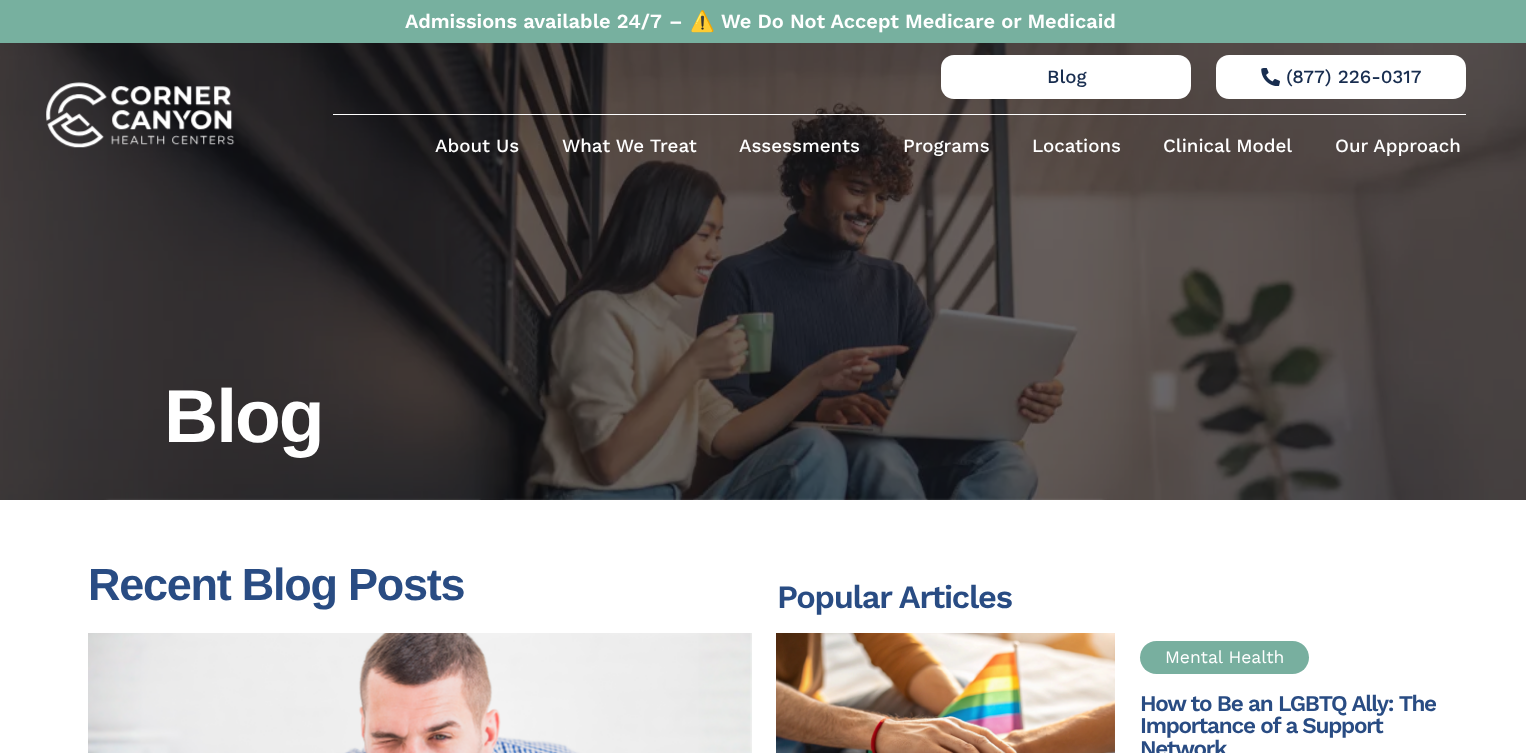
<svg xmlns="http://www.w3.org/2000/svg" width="1526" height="753">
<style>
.a{font:600 20px Work Sans;fill:#fff}
.b{font:bold 20px Noto Color Emoji;fill:#fff}
.c{font:500 18.75px Work Sans;fill:#182d4f}
.d{font:500 18.75px Work Sans;fill:#fff}
.e{font:bold 75px Liberation Sans;letter-spacing:-2px;fill:#fff}
.f{font:bold 45px Liberation Sans;letter-spacing:-1.25px;fill:#294c83}
.g{font:600 32.5px Work Sans;letter-spacing:-1.25px;fill:#294c83}
.h{font:17.5px Work Sans;fill:#fff}
.i{font:600 22.5px Work Sans;letter-spacing:-1.25px;fill:#294c83}
</style>
<rect width="100%" height="100%" fill="#fff"/>
<path fill="#77b09f" d="M0 0h1526v43H0z"/>
<image href="3.png" x="0" y="43" width="1526" height="457"/>
<image href="1.png" x="46" y="82" width="189" height="66"/>
<rect fill="#fff" x="941" y="55" width="250" height="44" rx="13"/>
<rect fill="#fff" x="1216" y="55" width="250" height="44" rx="13"/>
<image href="2.png" x="1261" y="68" width="19" height="18"/>
<path fill="#fff" d="M333 114h1133v1H333z"/>
<image href="4.png" x="88" y="633" width="664" height="120"/>
<image href="5.png" x="776" y="633" width="339" height="120"/>
<rect fill="#78af9f" x="1140" y="641" width="169" height="33" rx="16.5"/>
<text class="a" x="405" y="28">Admissions available 24/7</text>
<text class="a" x="669" y="28">–</text>
<text class="b" x="690" y="28">⚠️</text>
<text class="a" x="721" y="28">We Do Not Accept Medicare or Medicaid</text>
<text class="c" x="1047" y="83">Blog</text>
<text class="c" x="1286" y="83">(877) 226-0317</text>
<text class="d" x="435" y="152">About Us</text>
<text class="d" x="562" y="152">What We Treat</text>
<text class="d" x="739" y="152">Assessments</text>
<text class="d" x="903" y="152">Programs</text>
<text class="d" x="1032" y="152">Locations</text>
<text class="d" x="1163" y="152">Clinical Model</text>
<text class="d" x="1335" y="152">Our Approach</text>
<text class="e" x="164" y="442">Blog</text>
<text class="f" x="88" y="600">Recent Blog Posts</text>
<text class="g" x="777" y="608">Popular Articles</text>
<text class="h" x="1165" y="663">Mental Health</text>
<text class="i" x="1140" y="711">How to Be an LGBTQ Ally: The</text>
<text class="i" x="1140" y="733">Importance of a Support</text>
<text class="i" x="1140" y="756">Network</text>
</svg>
